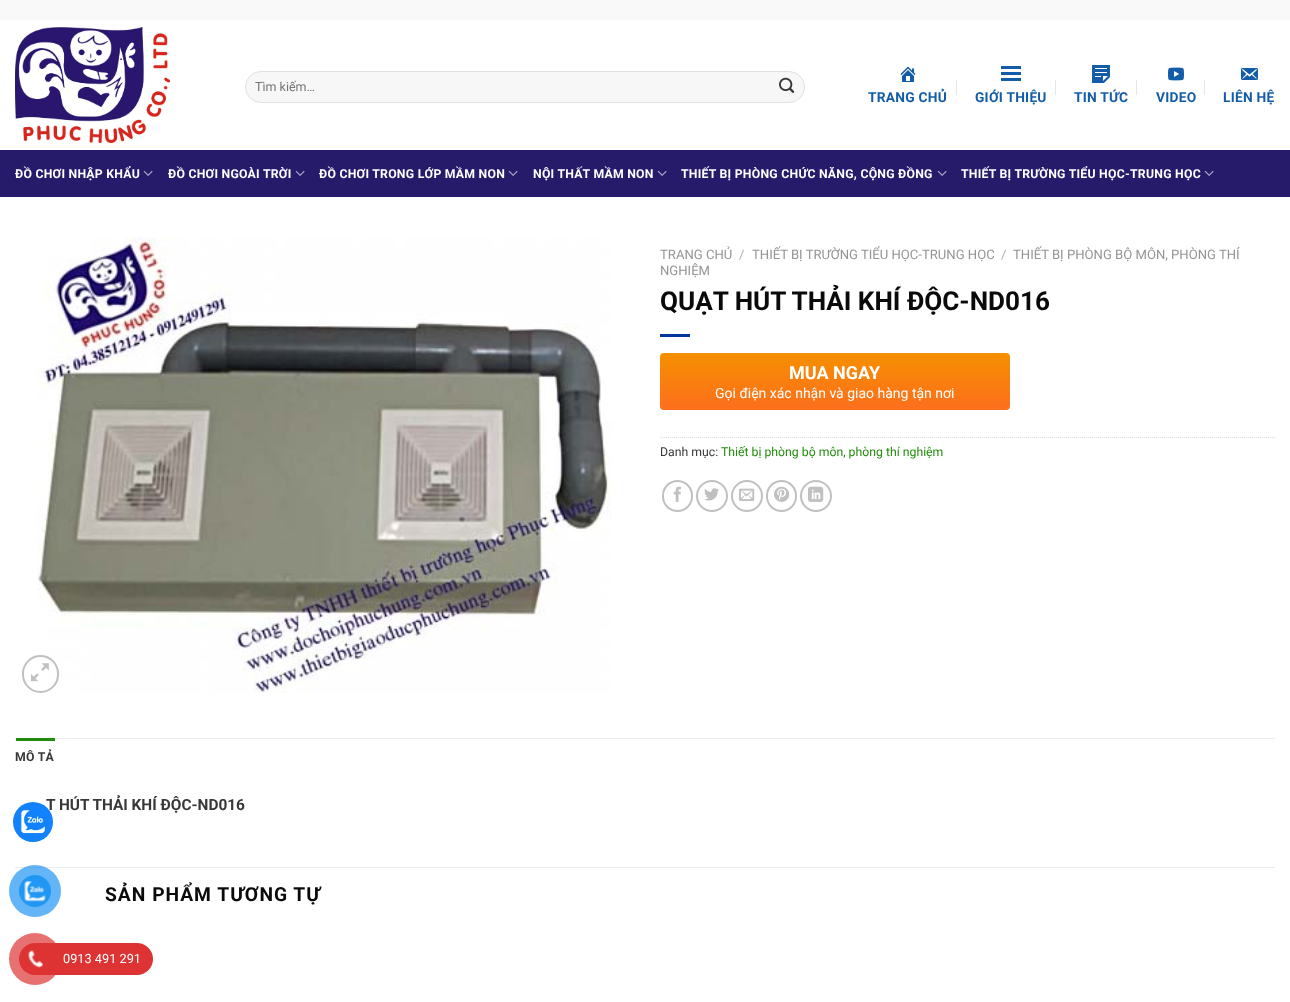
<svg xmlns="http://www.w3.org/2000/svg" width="1290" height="1002">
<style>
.a{font:12.5px Roboto;fill:#757575}
.b{font:bold 13.75px Roboto;letter-spacing:0.25px;fill:#135ca8}
.c{font:bold 12.25px Roboto;letter-spacing:0.25px;fill:#fff}
.d{font:13.1px Roboto;fill:#949494}
.e{font:13.1px Roboto;fill:#b2b2b2}
.f{font:bold 26.1px Roboto;fill:#0a0a0a}
.g{font:bold 18px Roboto;fill:#fff}
.h{font:14px Roboto;fill:#fff}
.i{font:12.25px Roboto;fill:#383838}
.j{font:12.25px Roboto;fill:#218c0b}
.k{font:bold 12.25px Roboto;letter-spacing:0.25px;fill:#383838}
.l{font:bold 15.4px Roboto;fill:#383838}
.m{font:bold 19.25px Roboto;letter-spacing:1px;fill:#0a0a0a}
.n{font:12.75px Roboto;fill:#fff}
</style>
<defs>
<linearGradient id="g1" gradientUnits="userSpaceOnUse" x1="835" y1="353" x2="835" y2="410"><stop offset="0" stop-color="#f59000"/><stop offset="1" stop-color="#fd6e1d"/></linearGradient>
</defs>
<rect width="100%" height="100%" fill="#fff"/>
<path fill="#f9f9f9" d="M0 0h1290v20H0z"/>
<image href="1.png" x="15" y="27" width="155" height="116"/>
<rect fill="#f7f7f7" x="245" y="71" width="560" height="32" rx="16"/>
<rect fill="none" stroke="#00000017" x="245.5" y="71.5" width="559" height="31" rx="15.5"/>
<image href="2.png" x="779" y="77" width="16" height="16"/>
<image href="3.png" x="900" y="66" width="16" height="16"/>
<path fill="#e6e6e6" d="M956 80h1v15H956z"/>
<image href="4.png" x="1001" y="66" width="20" height="15"/>
<path fill="#e6e6e6" d="M1055 80h1v15H1055z"/>
<image href="5.png" x="1092" y="65" width="18" height="18"/>
<path fill="#e6e6e6" d="M1136 80h1v15H1136z"/>
<image href="6.png" x="1168" y="67" width="16" height="14"/>
<path fill="#e6e6e6" d="M1204 80h1v15H1204z"/>
<image href="7.png" x="1241" y="68" width="17" height="12"/>
<path fill="#261a6b" d="M0 150h1290v47H0z"/>
<image href="8.png" x="143" y="170" width="10" height="6"/>
<image href="8.png" x="295" y="170" width="10" height="6"/>
<image href="8.png" x="508" y="170" width="10" height="6"/>
<image href="8.png" x="657" y="170" width="10" height="6"/>
<image href="8.png" x="937" y="170" width="10" height="6"/>
<image href="8.png" x="1204" y="170" width="10" height="6"/>
<image href="9.png" x="37" y="237" width="574" height="456"/>
<rect fill="none" stroke="#c0c0c0" stroke-width="2" x="23" y="656" width="35" height="36" rx="17.5"/>
<image href="10.png" x="31" y="663" width="18" height="19"/>
<path fill="#01359e" d="M660 334h30v3H660z"/>
<rect fill="url(#g1)" x="660" y="353" width="350" height="57" rx="4"/>
<path fill="none" stroke="#ddd" stroke-dasharray="1 1" d="M660 437.5h615"/>
<rect fill="none" stroke="#c0c0c0" stroke-width="2" x="663" y="481" width="29" height="30" rx="14.5"/>
<image href="11.png" x="673" y="486" width="8" height="16"/>
<circle fill="none" stroke="#c0c0c0" stroke-width="2" cx="712" cy="496" r="15"/>
<image href="12.png" x="704" y="488" width="15" height="13"/>
<circle fill="none" stroke="#c0c0c0" stroke-width="2" cx="747" cy="496" r="15"/>
<image href="13.png" x="739" y="488" width="16" height="13"/>
<rect fill="none" stroke="#c0c0c0" stroke-width="2" x="767" y="481" width="29" height="30" rx="14.5"/>
<image href="14.png" x="774" y="486" width="16" height="16"/>
<circle fill="none" stroke="#c0c0c0" stroke-width="2" cx="816" cy="496" r="15"/>
<image href="15.png" x="808" y="486" width="16" height="16"/>
<path fill="#ececec" d="M15 738h1260v1H15z"/>
<path fill="#218c0b" d="M16 738h39v3H16z"/>
<path fill="#ececec" d="M15 867h1260v1H15z"/>
<circle fill="#2196f3b3" cx="35" cy="891" r="26"/>
<circle fill="#2196f3" cx="35" cy="891" r="16"/>
<image href="17.png" x="24" y="881" width="22" height="21"/>
<rect fill="#d33" x="23" y="943" width="130" height="32" rx="16"/>
<circle fill="#dd3333b3" cx="35" cy="959" r="26"/>
<circle fill="#d33" cx="35" cy="959" r="16"/>
<image href="18.png" x="27" y="950" width="16" height="18"/>
<text class="a" x="255" y="91">Tìm kiếm…</text>
<text class="b" x="868" y="102">TRANG CHỦ</text>
<text class="b" x="975" y="102">GIỚI THIỆU</text>
<text class="b" x="1074" y="102">TIN TỨC</text>
<text class="b" x="1156" y="102">VIDEO</text>
<text class="b" x="1223" y="102">LIÊN HỆ</text>
<text class="c" x="15" y="178">ĐỒ CHƠI NHẬP KHẨU</text>
<text class="c" x="168" y="178">ĐỒ CHƠI NGOÀI TRỜI</text>
<text class="c" x="319" y="178">ĐỒ CHƠI TRONG LỚP MẦM NON</text>
<text class="c" x="533" y="178">NỘI THẤT MẦM NON</text>
<text class="c" x="681" y="178">THIẾT BỊ PHÒNG CHỨC NĂNG, CỘNG ĐỒNG</text>
<text class="c" x="961" y="178">THIẾT BỊ TRƯỜNG TIỂU HỌC-TRUNG HỌC</text>
<text class="d" x="660" y="259">TRANG CHỦ</text>
<text class="e" x="739" y="259">/</text>
<text class="d" x="752" y="259">THIẾT BỊ TRƯỜNG TIỂU HỌC-TRUNG HỌC</text>
<text class="e" x="1001" y="259">/</text>
<text class="d" x="1013" y="259">THIẾT BỊ PHÒNG BỘ MÔN, PHÒNG THÍ</text>
<text class="d" x="660" y="275">NGHIỆM</text>
<text class="f" x="660" y="310">QUẠT HÚT THẢI KHÍ ĐỘC-ND016</text>
<text class="g" x="789" y="379">MUA NGAY</text>
<text class="h" x="715" y="398">Gọi điện xác nhận và giao hàng tận nơi</text>
<text class="i" x="660" y="456">Danh mục:</text>
<text class="j" x="721" y="456">Thiết bị phòng bộ môn, phòng thí nghiệm</text>
<text class="k" x="15" y="761">MÔ TẢ</text>
<text class="l" x="46" y="810">T HÚT THẢI KHÍ ĐỘC-ND016</text>
<text class="m" x="105" y="901">SẢN PHẨM TƯƠNG TỰ</text>
<circle fill="#1182fc" cx="33" cy="822" r="20"/>
<image href="16.png" x="20" y="810" width="25" height="24"/>
<text class="n" x="63" y="963">0913 491 291</text>
</svg>
